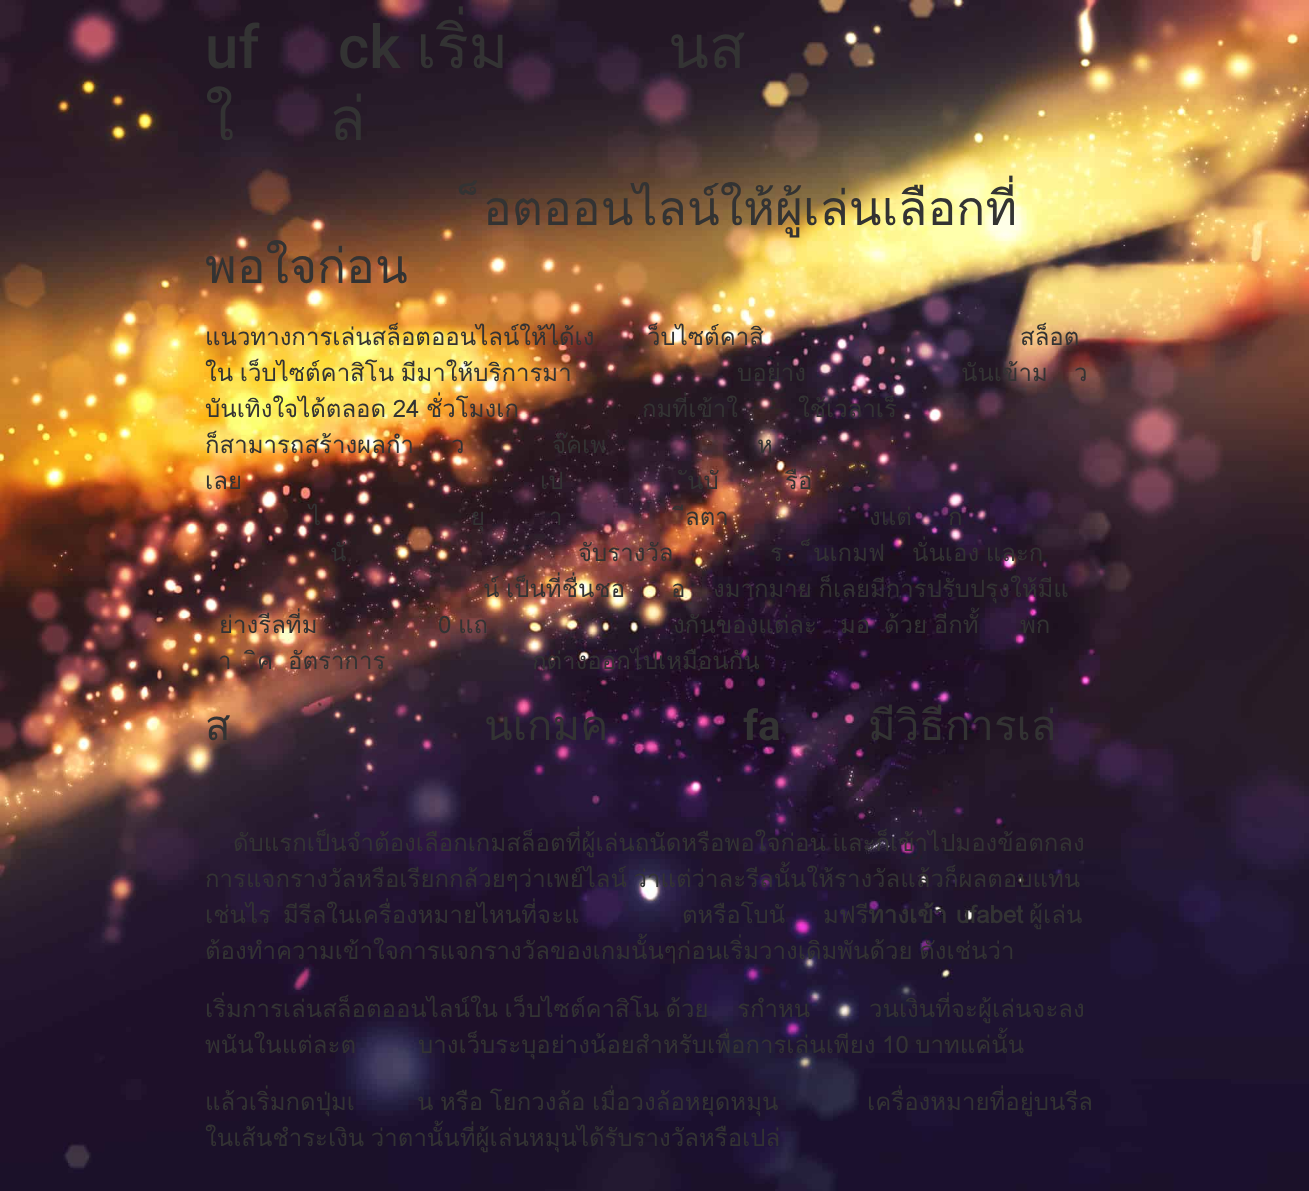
<svg xmlns="http://www.w3.org/2000/svg" width="1309" height="1191">
<style>
.a{font:500 60px Roboto;fill:#333}
.b{font:60px Loma;fill:#333}
.c{font:48px Loma;fill:#333}
.d{font:24px Loma;fill:#333}
.e{font:42px Loma;fill:#333}
.f{font:bold 42px Roboto;fill:#333}
.g{font:bold 24px Loma;fill:#333}
</style>
<rect width="100%" height="100%" fill="#fff"/>
<image href="1.png" x="0" y="0" width="1309" height="1191"/>
<text class="a" x="205" y="68">uf</text>
<text class="a" x="338" y="68">ck</text>
<text class="b" x="416" y="68">เริ่ม</text>
<text class="b" x="668" y="68">นส</text>
<text class="b" x="205" y="140">ใ</text>
<text class="b" x="329" y="140">ล่</text>
<text class="c" x="483" y="225">็อตออนไลน์ให้ผู้เล่นเลือกที่</text>
<text class="c" x="205" y="283">พอใจก่อน</text>
<text class="d" x="205" y="345">แนวทางการเล่นสล็อตออนไลน์ให้ได้เง</text>
<text class="d" x="647" y="345">ว็บไซต์คาสิ</text>
<text class="d" x="1020" y="345">สล็อต</text>
<text class="d" x="205" y="381" word-spacing="-1.5">ใน เว็บไซต์คาสิโน มีมาให้บริการมา</text>
<text class="d" x="737" y="381" word-spacing="-1.5">บอย่าง</text>
<text class="d" x="961" y="381" word-spacing="-1.5">นันเข้าม</text>
<text class="d" x="1074" y="381" word-spacing="-1.5">ว</text>
<text class="d" x="205" y="417" word-spacing="-1.5">บันเทิงใจได้ตลอด 24 ชั่วโมงเก</text>
<text class="d" x="642" y="417" word-spacing="-1.5">กมที่เข้าใ</text>
<text class="d" x="798" y="417" word-spacing="-1.5">ใช้เวลาเร็</text>
<text class="d" x="205" y="453" word-spacing="-1.5">ก็สามารถสร้างผลกำ</text>
<text class="d" x="451" y="453" word-spacing="-1.5">ว</text>
<text class="d" x="552" y="453" word-spacing="-1.5">จ๊คเพ</text>
<text class="d" x="757" y="453" word-spacing="-1.5">ห</text>
<text class="d" x="205" y="489" word-spacing="-1.5">เลย</text>
<text class="d" x="540" y="489" word-spacing="-1.5">เป</text>
<text class="d" x="687" y="489" word-spacing="-1.5">ันบั</text>
<text class="d" x="785" y="489" word-spacing="-1.5">รือ</text>
<text class="d" x="309" y="525" word-spacing="-1.5">ไ</text>
<text class="d" x="471" y="525" word-spacing="-1.5">ยุ</text>
<text class="d" x="549" y="525" word-spacing="-1.5">า</text>
<text class="d" x="685" y="525" word-spacing="-1.5">ีลตา</text>
<text class="d" x="869" y="525" word-spacing="-1.5">งแต่</text>
<text class="d" x="948" y="525" word-spacing="-1.5">ก</text>
<text class="d" x="330" y="561" word-spacing="-1.5">นั</text>
<text class="d" x="578" y="561" word-spacing="-1.5">จับรางวัล</text>
<text class="d" x="770" y="561" word-spacing="-1.5">ร</text>
<text class="d" x="813" y="561" word-spacing="-1.5">็นเกมฟ</text>
<text class="d" x="912" y="561" word-spacing="-1.5">นั่นเอง และก</text>
<text class="d" x="483" y="597" word-spacing="-1.5">น์ เป็นที่ชื่นชอ</text>
<text class="d" x="671" y="597" word-spacing="-1.5">อ</text>
<text class="d" x="713" y="597" word-spacing="-1.5">งมากมาย ก็เลยมีการปรับปรุงให้มีแ</text>
<text class="d" x="219" y="633" word-spacing="-1.5">ย่างรีลที่ม</text>
<text class="d" x="438" y="633" word-spacing="-1.5">0 แถ</text>
<text class="d" x="673" y="633" word-spacing="-1.5">งกันของแต่ละ</text>
<text class="d" x="840" y="633" word-spacing="-1.5">มอ</text>
<text class="d" x="884" y="633" word-spacing="-1.5">ด้วย อีกทั้</text>
<text class="d" x="1020" y="633" word-spacing="-1.5">พก</text>
<text class="d" x="218" y="669" word-spacing="-1.5">า</text>
<text class="d" x="257" y="669" word-spacing="-1.5">ิค</text>
<text class="d" x="288" y="669" word-spacing="-1.5">อัตราการ</text>
<text class="d" x="532" y="669" word-spacing="-1.5">กต่างออกไปเหมือนกัน</text>
<text class="e" x="205" y="740">ส</text>
<text class="e" x="484" y="740">นเกมค</text>
<text class="f" x="743" y="740">fa</text>
<text class="e" x="868" y="740">มีวิธีการเล่</text>
<text class="d" x="233" y="851" word-spacing="-1.5">ดับแรกเป็นจำต้องเลือกเกมสล็อตที่ผู้เล่นถนัดหรือพอใจก่อน และก็เข้าไปมองข้อตกลง</text>
<text class="d" x="205" y="887" word-spacing="-1.5">การแจกรางวัลหรือเรียกกล้วยๆว่าเพย์ไลน์ ว่าแต่ว่าละรีลนั้นให้รางวัลแล้วก็ผลตอบแทน</text>
<text class="d" x="205" y="923" word-spacing="4">เช่นไร มีรีลในเครื่องหมายไหนที่จะแ</text>
<text class="d" x="682" y="923" word-spacing="4">ตหรือโบนั</text>
<text class="d" x="823" y="923" word-spacing="4">มฟรี</text>
<text class="g" x="868" y="923" word-spacing="1">ทางเข้า ufabet</text>
<text class="d" x="1029" y="923">ผู้เล่น</text>
<text class="d" x="205" y="959" word-spacing="-1.5">ต้องทำความเข้าใจการแจกรางวัลของเกมนั้นๆก่อนเริ่มวางเดิมพันด้วย ดังเช่นว่า</text>
<text class="d" x="205" y="1017" word-spacing="-1.5">เริ่มการเล่นสล็อตออนไลน์ใน เว็บไซต์คาสิโน ด้วย</text>
<text class="d" x="737" y="1017" word-spacing="-1.5">รกำหน</text>
<text class="d" x="869" y="1017" word-spacing="-1.5">วนเงินที่จะผู้เล่นจะลง</text>
<text class="d" x="205" y="1053" word-spacing="-1.5">พนันในแต่ละต</text>
<text class="d" x="418" y="1053" word-spacing="-1.5">บางเว็บระบุอย่างน้อยสำหรับเพื่อการเล่นเพียง 10 บาทแค่นั้น</text>
<text class="d" x="205" y="1110" word-spacing="-1.5">แล้วเริ่มกดปุ่มเ</text>
<text class="d" x="417" y="1110" word-spacing="-1.5">น หรือ โยกวงล้อ เมื่อวงล้อหยุดหมุน</text>
<text class="d" x="867" y="1110" word-spacing="-1.5">เครื่องหมายที่อยู่บนรีล</text>
<text class="d" x="205" y="1146" word-spacing="-1.5">ในเส้นชำระเงิน ว่าตานั้นที่ผู้เล่นหมุนได้รับรางวัลหรือเปล่</text>
</svg>
